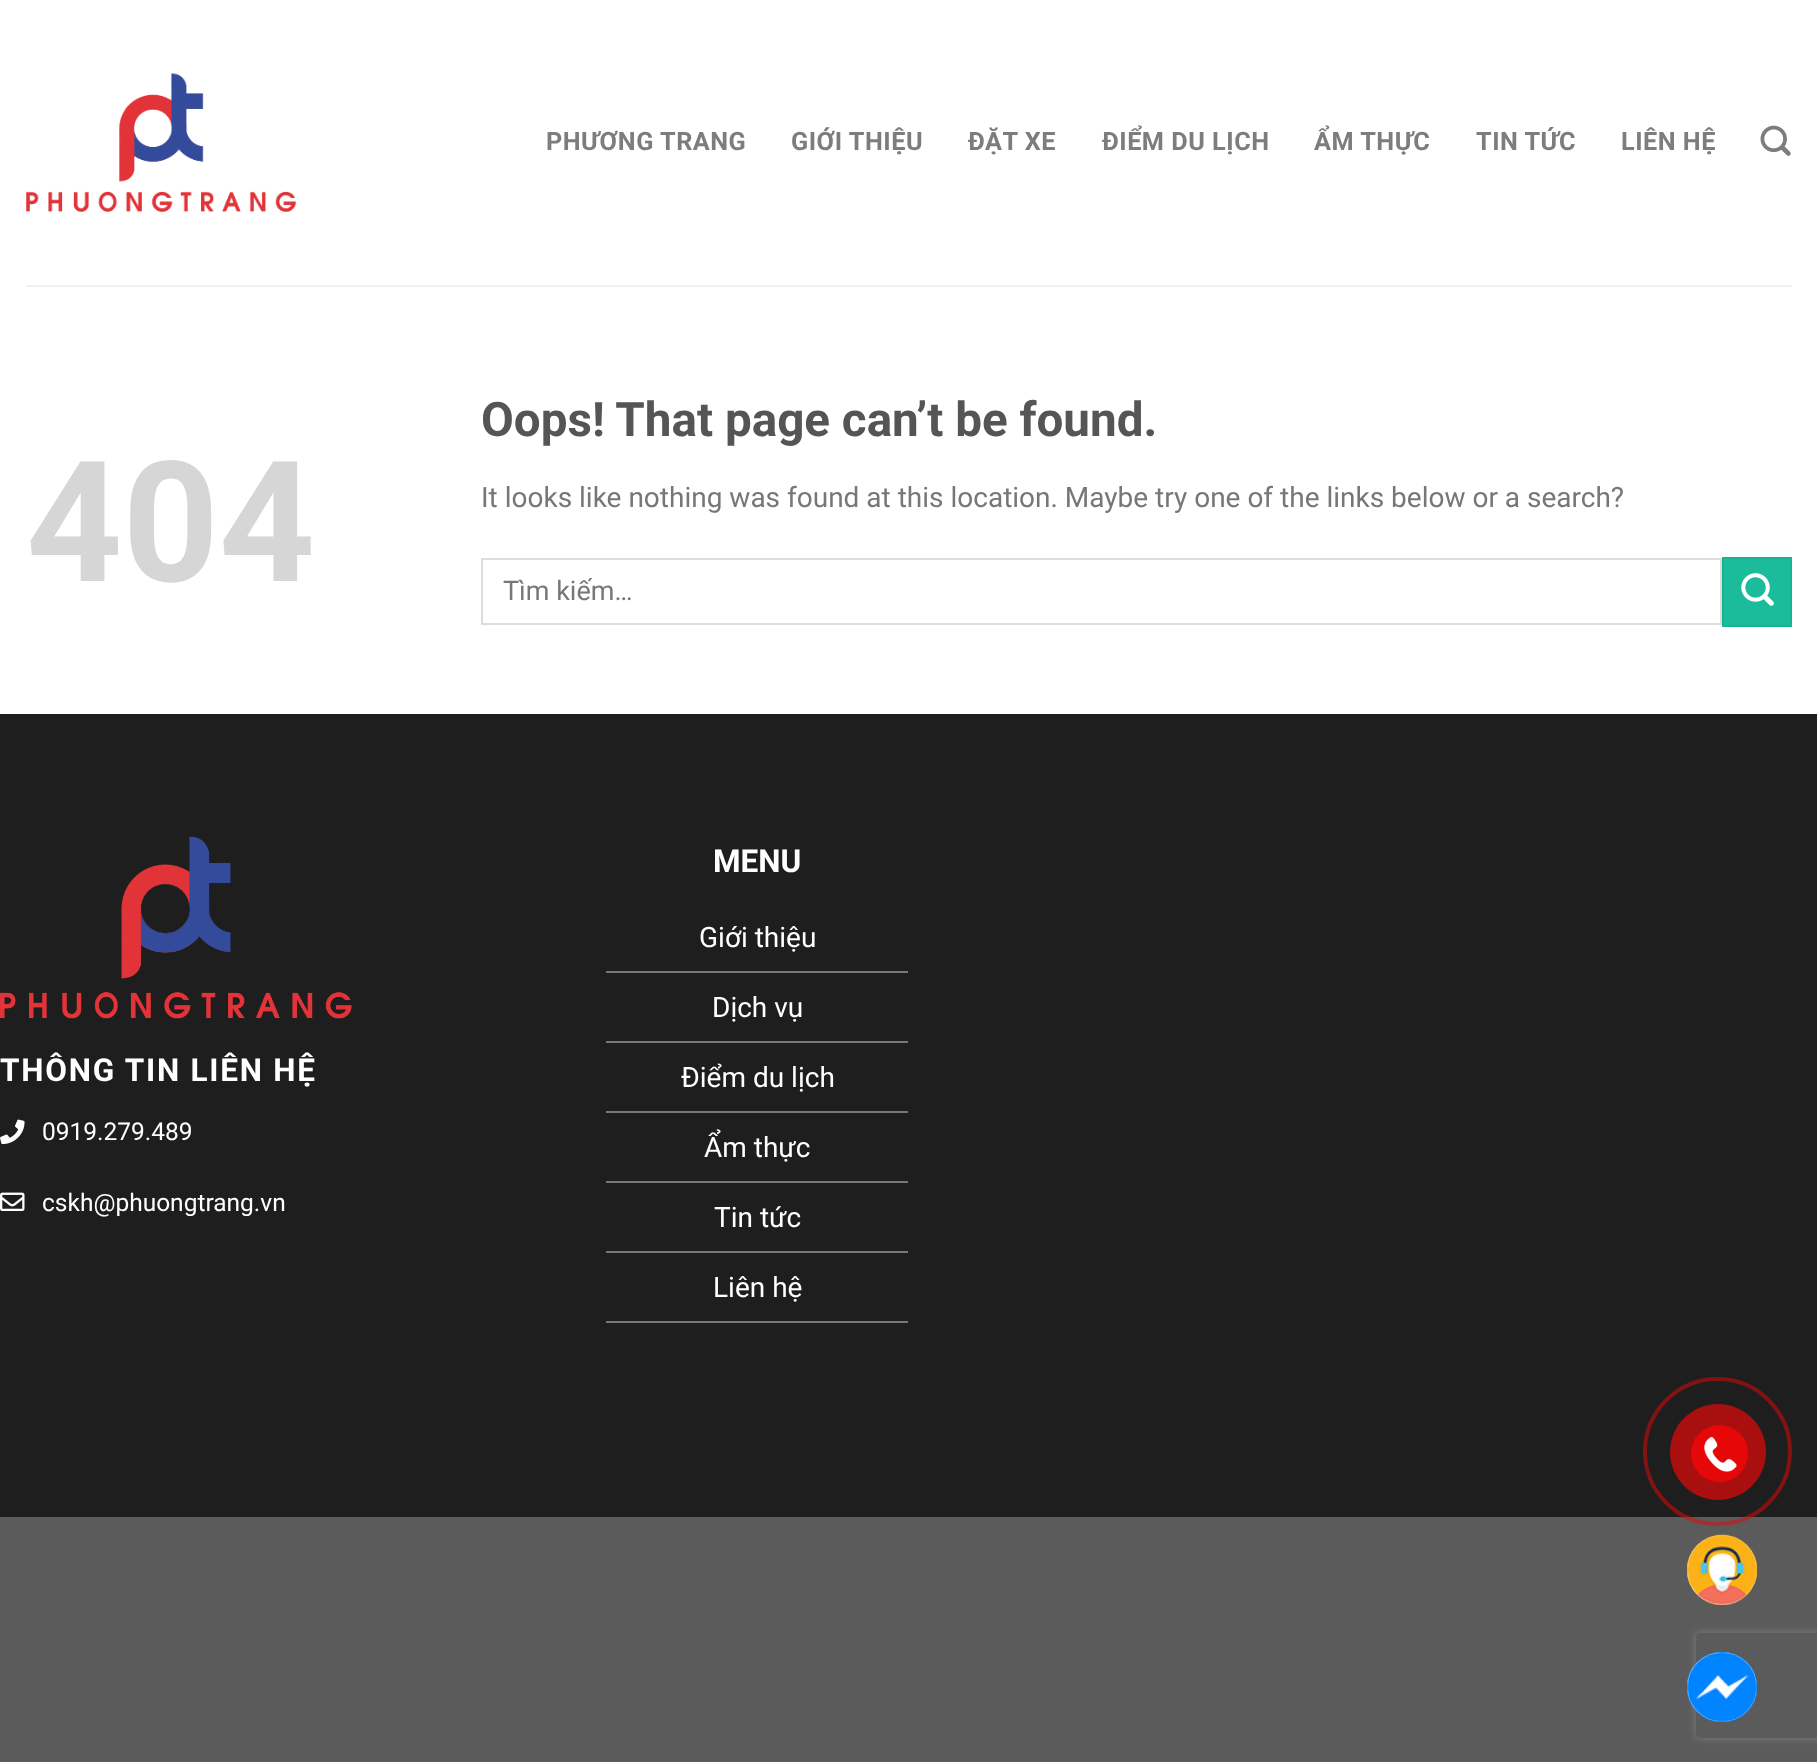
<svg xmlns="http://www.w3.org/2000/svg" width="1817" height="1762">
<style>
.a{font:bold 25.25px Roboto;letter-spacing:0.5px;fill:#7d7d7d}
.b{font:bold 168px Roboto;fill:#d6d6d6}
.c{font:bold 47.6px Roboto;fill:#555}
.d{font:28px Roboto;fill:#777}
.e{font:27px Roboto;fill:#777}
.f{font:bold 31.5px Roboto;letter-spacing:1.75px;fill:#fff}
.g{font:24.5px Roboto;fill:#fff}
.h{font:bold 31.5px Roboto;fill:#fff}
.i{font:28px Roboto;fill:#fff}
</style>
<defs>
<clipPath id="clip1"><path d="M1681 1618h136v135h-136zm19 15h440c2 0 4 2 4 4v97c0 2-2 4-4 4h-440c-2 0-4-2-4-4v-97c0-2 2-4 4-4z" clip-rule="evenodd"/></clipPath>
</defs>
<rect width="100%" height="100%" fill="#5b5b5b"/>
<path fill="#fff" d="M0 0h1817v714H0z"/>
<image href="1.png" x="26" y="73" width="270" height="139"/>
<image href="2.png" x="1760" y="125" width="31" height="31"/>
<path fill="#f1f1f1" d="M26 285h1766v2H26z"/>
<path fill="none" stroke="#ddd" stroke-width="2" d="M482 559h1239v65H482z"/>
<path fill="#1abc9c" stroke="#19b394" stroke-width="2" d="M1723 558h68v68H1723z"/>
<image href="3.png" x="1741" y="573" width="33" height="33"/>
<path fill="#1e1e1e" d="M0 714h1817v803H0z"/>
<image href="4.png" x="0" y="836" width="352" height="183"/>
<image href="5.png" x="0" y="1119" width="25" height="26"/>
<image href="6.png" x="0" y="1192" width="25" height="19"/>
<path fill="#777" d="M606 971h302v2H606z"/>
<path fill="#777" d="M606 1041h302v2H606z"/>
<path fill="#777" d="M606 1111h302v2H606z"/>
<path fill="#777" d="M606 1181h302v2H606z"/>
<path fill="#777" d="M606 1251h302v2H606z"/>
<path fill="#777" d="M606 1321h302v2H606z"/>
<circle fill="none" stroke="#e6080880" stroke-width="4" cx="1717.5" cy="1451.5" r="72.5"/>
<circle fill="#aa0f0f" cx="1718" cy="1452" r="48"/>
<circle fill="#e60808" cx="1719.5" cy="1453.5" r="28.5"/>
<image href="7.png" x="1704" y="1436" width="33" height="36"/>
<circle fill="#fff" cx="1722" cy="1570" r="35"/>
<image href="8.png" x="1687" y="1534" width="70" height="71"/>
<g clip-path="url(#clip1)">
<rect fill="#808080" filter="blur(4.5px)" x="1696" y="1633" width="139" height="105" rx="4"/>
</g>
<circle fill="#fff" cx="1722" cy="1687" r="35"/>
<image href="9.png" x="1687" y="1652" width="70" height="70"/>
<text class="a" x="546" y="150">PHƯƠNG TRANG</text>
<text class="a" x="791" y="150">GIỚI THIỆU</text>
<text class="a" x="968" y="150">ĐẶT XE</text>
<text class="a" x="1102" y="150">ĐIỂM DU LỊCH</text>
<text class="a" x="1314" y="150">ẨM THỰC</text>
<text class="a" x="1476" y="150">TIN TỨC</text>
<text class="a" x="1621" y="150">LIÊN HỆ</text>
<text class="b" x="26" y="581">404</text>
<text class="c" x="481" y="436">Oops! That page can’t be found.</text>
<text class="d" x="481" y="507">It looks like nothing was found at this location. Maybe try one of the links below or a search?</text>
<text class="e" x="503" y="600">Tìm kiếm…</text>
<text class="f" x="0" y="1081">THÔNG TIN LIÊN HỆ</text>
<text class="g" x="42" y="1140">0919.279.489</text>
<text class="g" x="42" y="1211">cskh@phuongtrang.vn</text>
<text class="h" x="713" y="872">MENU</text>
<text class="i" x="699" y="947">Giới thiệu</text>
<text class="i" x="712" y="1017">Dịch vụ</text>
<text class="i" x="681" y="1087">Điểm du lịch</text>
<text class="i" x="704" y="1157">Ẩm thực</text>
<text class="i" x="714" y="1227">Tin tức</text>
<text class="i" x="713" y="1297">Liên hệ</text>
</svg>
